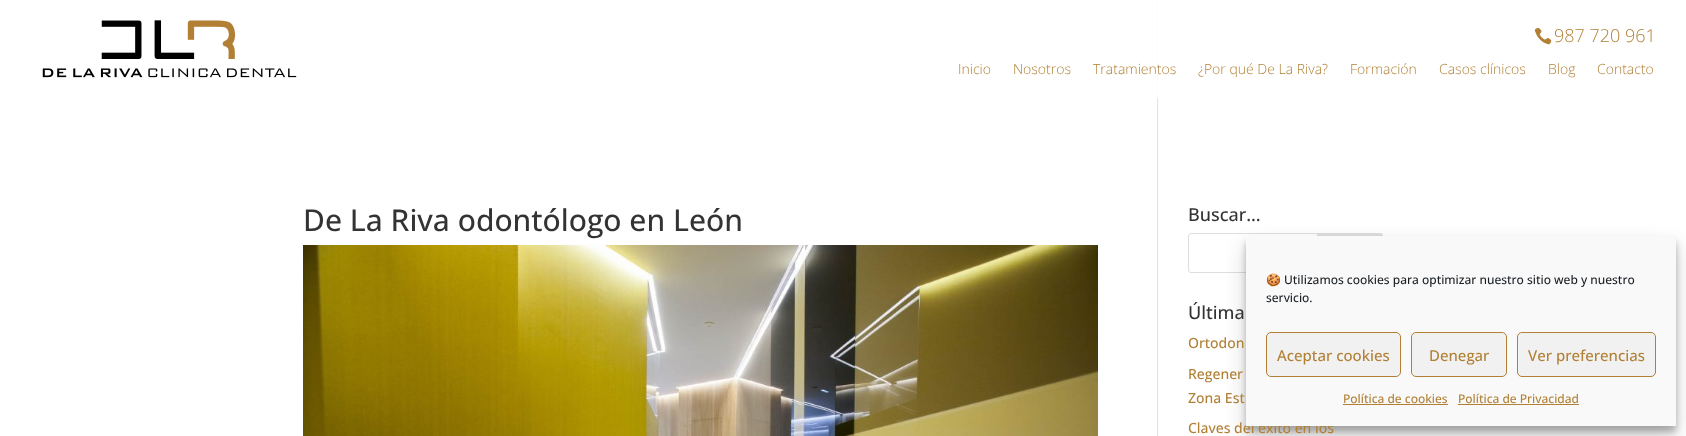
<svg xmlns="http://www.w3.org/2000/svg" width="1686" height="436">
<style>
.a{font:300 18px Open Sans;fill:#b18035}
.b{font:300 14px Open Sans;fill:#b18035}
.c{font:500 30px Open Sans;fill:#333}
.d{font:500 18px Open Sans;fill:#333}
.e{font:500 14px Open Sans;fill:#b18035}
.f{font:12px Noto Color Emoji;fill:#191e23}
.g{font:500 12px Open Sans;fill:#191e23}
.h{font:500 15px Open Sans;fill:#b18035}
.i{font:500 12px Open Sans;fill:#b18035}
</style>
<rect width="100%" height="100%" fill="#fff"/>
<image href="1.png" x="1534" y="27" width="18" height="18"/>
<image href="2.png" x="42" y="20" width="255" height="58"/>
<path fill="#e2e2e2" d="M1157 98h1v338H1157z"/>
<path fill="#fcfcfc" d="M1157 0h1v98H1157z"/>
<image href="3.png" x="303" y="245" width="795" height="191"/>
<rect fill="none" stroke="#ddd" x="1188.5" y="233.5" width="194" height="39" rx="2.5"/>
<path fill="#ddd" stroke="#ddd" d="M1317.5 233.5h62.5c1.5 0 2.5 1 2.5 2.5v34c0 1.5-1 2.5-2.5 2.5h-62.5z"/>
<path fill="#0000003b" filter="blur(3px)" d="M1246 242h430v190H1246z"/>
<path fill="#00000030" filter="blur(10px)" d="M1246 246h430v190H1246z"/>
<text class="a" x="1554" y="42">987 720 961</text>
<text class="b" x="958" y="74">Inicio</text>
<text class="b" x="1013" y="74">Nosotros</text>
<text class="b" x="1093" y="74">Tratamientos</text>
<text class="b" x="1198" y="74">¿Por qué De La Riva?</text>
<text class="b" x="1350" y="74">Formación</text>
<text class="b" x="1439" y="74">Casos clínicos</text>
<text class="b" x="1548" y="74">Blog</text>
<text class="b" x="1597" y="74">Contacto</text>
<text class="c" x="303" y="231">De La Riva odontólogo en León</text>
<text class="d" x="1188" y="221">Buscar…</text>
<text class="d" x="1188" y="319">Última</text>
<text class="e" x="1188" y="348">Ortodon</text>
<text class="e" x="1188" y="379">Regener</text>
<text class="e" x="1188" y="403">Zona Est</text>
<text class="e" x="1188" y="433">Claves del éxito en los</text>
<path fill="#f9f9f9" d="M1246 236h430v190H1246z"/>
<text class="f" x="1266" y="284">🍪</text>
<text class="g" x="1284" y="284">Utilizamos cookies para optimizar nuestro sitio web y nuestro</text>
<text class="g" x="1266" y="302">servicio.</text>
<rect fill="#f1f1f1" stroke="#b18035" x="1266.5" y="332.5" width="134" height="44" rx="4.5"/>
<text class="h" x="1277" y="361">Aceptar cookies</text>
<rect fill="#f1f1f1" stroke="#b18035" x="1411.5" y="332.5" width="95" height="44" rx="4.5"/>
<text class="h" x="1429" y="361">Denegar</text>
<rect fill="#f1f1f1" stroke="#b18035" x="1517.5" y="332.5" width="138" height="44" rx="4.5"/>
<text class="h" x="1528" y="361">Ver preferencias</text>
<text class="i" x="1343" y="403">Política de cookies</text>
<path fill="#b18035" d="M1343 404h105v1H1343z"/>
<text class="i" x="1458" y="403">Política de Privacidad</text>
<path fill="#b18035" d="M1458 404h121v1H1458z"/>
</svg>
